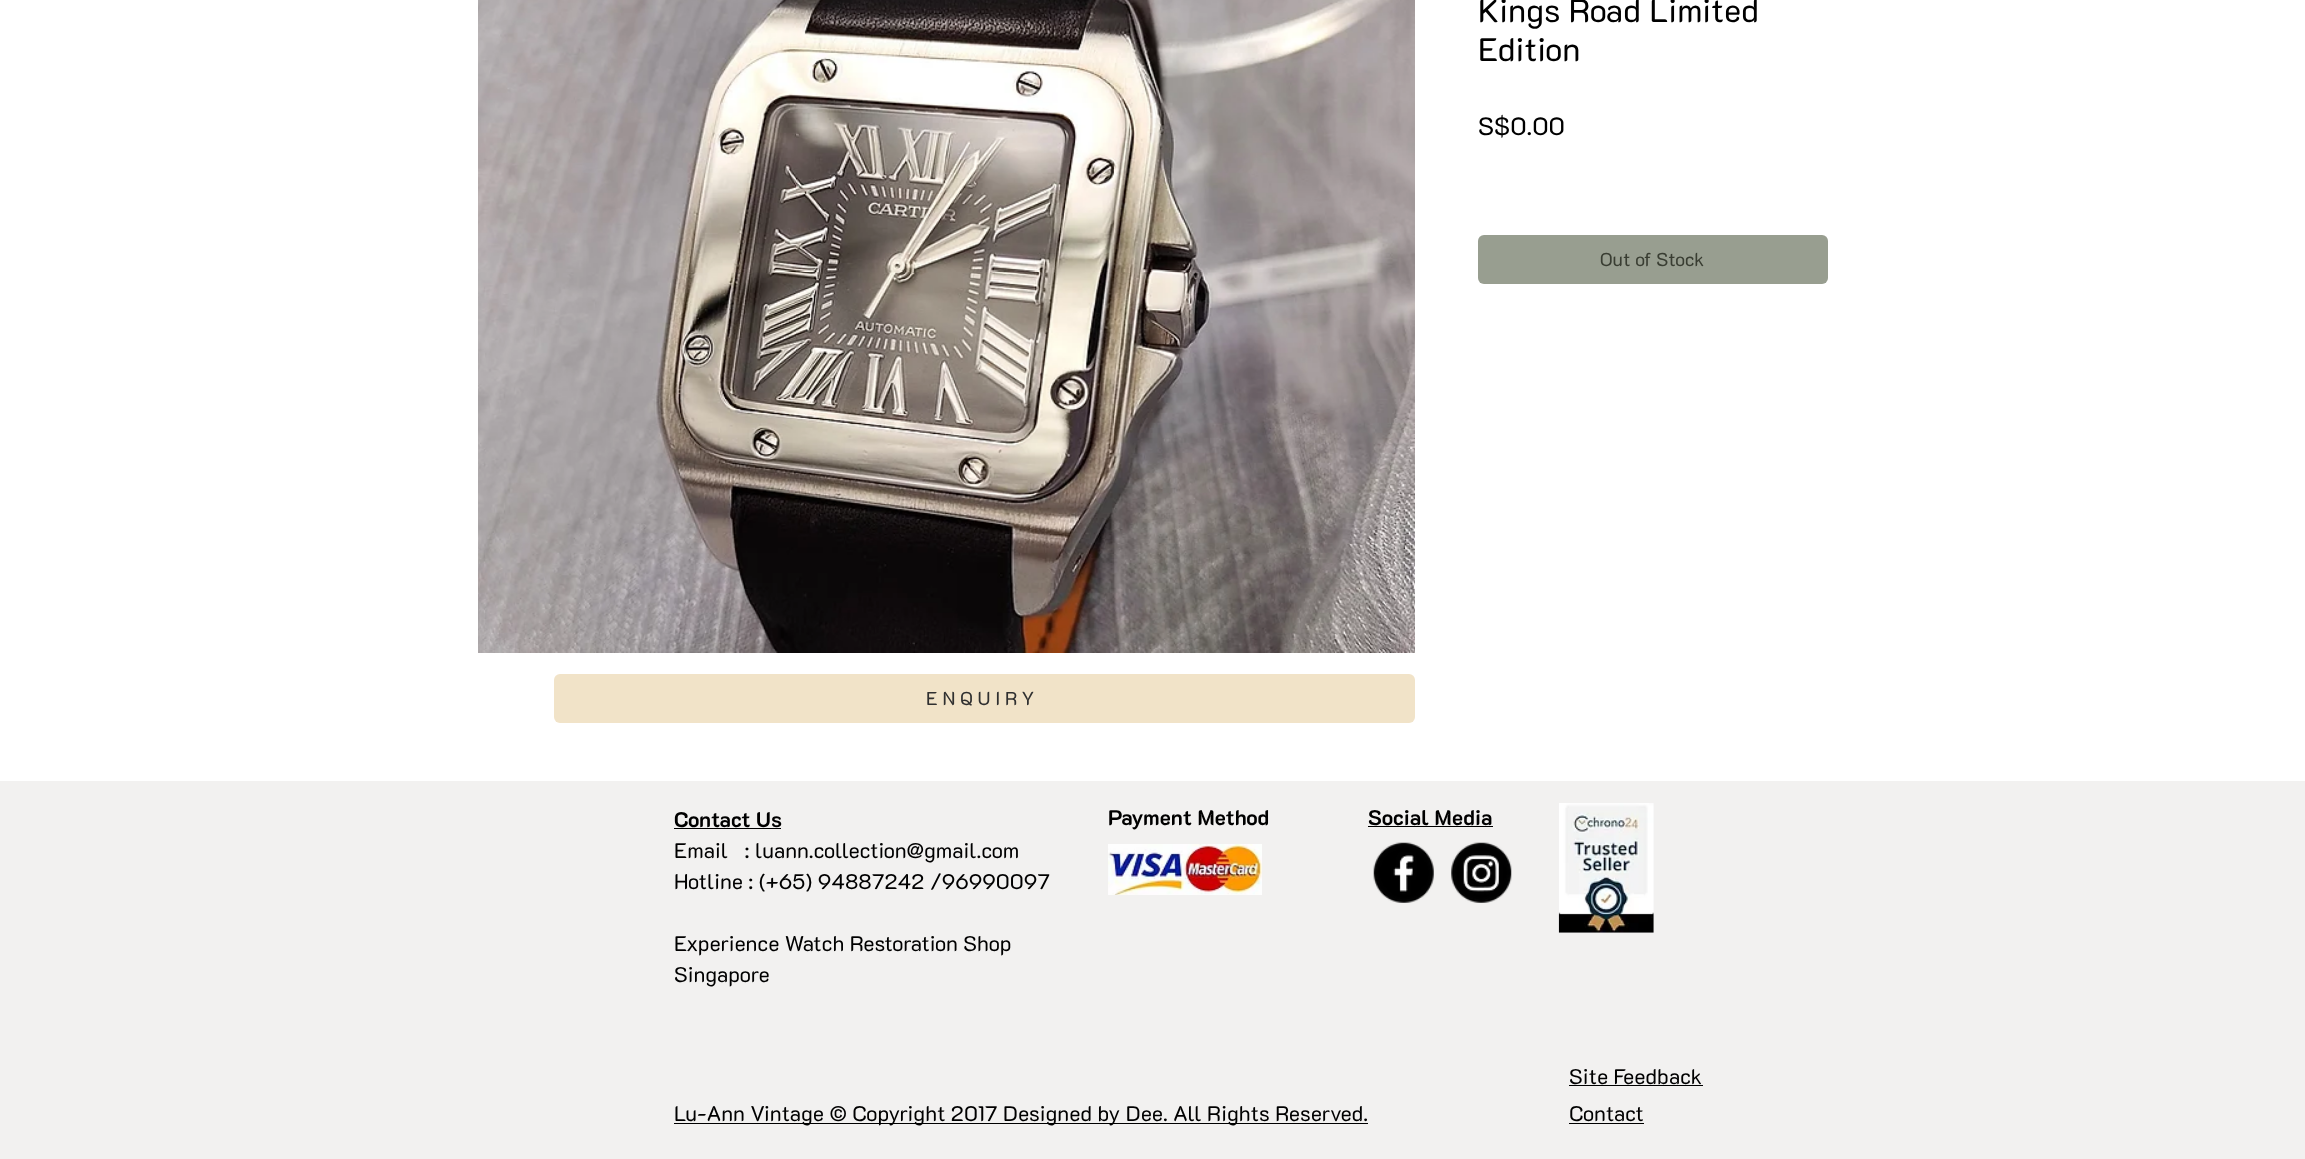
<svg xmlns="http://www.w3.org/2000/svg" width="2305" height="1159">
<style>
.a{font:32.5px 'K2D';fill:#000}
.b{font:25px 'K2D';fill:#000}
.c{font:18.75px 'K2D';fill:#393d32}
.d{font:18.75px 'K2D';letter-spacing:4.75px;fill:#303030}
.e{font:bold 21.25px 'K2D';fill:#000}
.f{font:21.25px 'K2D';fill:#000}
</style>
<rect width="100%" height="100%" fill="#fff"/>
<image href="1.png" x="478" y="0" width="937" height="653"/>
<rect fill="#989e90" x="1478" y="235" width="350" height="49" rx="6"/>
<rect fill="#f1e3c8" x="554" y="674" width="861" height="49" rx="6"/>
<path fill="#f2f1f0" d="M0 781h2305v378H0z"/>
<path fill="#000" d="M674 828h107v1H674z"/>
<path fill="#000" d="M1368 826h125v1H1368z"/>
<image href="2.png" x="1558" y="803" width="96" height="130"/>
<image href="3.png" x="1108" y="844" width="154" height="51"/>
<image href="4.png" x="1373" y="842" width="61" height="61"/>
<image href="5.png" x="1451" y="842" width="61" height="61"/>
<path fill="#000" d="M1569 1085h134v1H1569z"/>
<path fill="#000" d="M674 1123h694v1H674z"/>
<path fill="#000" d="M1569 1123h75v1H1569z"/>
<text class="a" x="1478" y="22">Kings Road Limited</text>
<text class="a" x="1478" y="61">Edition</text>
<text class="b" x="1478" y="135">S$0.00</text>
<text class="c" x="1600" y="266">Out of Stock</text>
<text class="d" x="926" y="705">ENQUIRY</text>
<text class="e" x="674" y="827">Contact Us</text>
<text class="f" xml:space="preserve" x="674" y="858">Email   : luann.collection@gmail.com</text>
<text class="f" x="674" y="889">Hotline : (+65) 94887242 /96990097</text>
<text class="f" x="674" y="951">Experience Watch Restoration Shop</text>
<text class="f" x="674" y="982">Singapore</text>
<text class="e" x="1108" y="825">Payment Method</text>
<text class="e" x="1368" y="825">Social Media</text>
<text class="f" x="1569" y="1084">Site Feedback</text>
<text class="f" x="674" y="1121">Lu-Ann Vintage © Copyright 2017 Designed by Dee. All Rights Reserved.</text>
<text class="f" x="1569" y="1121">Contact</text>
</svg>
